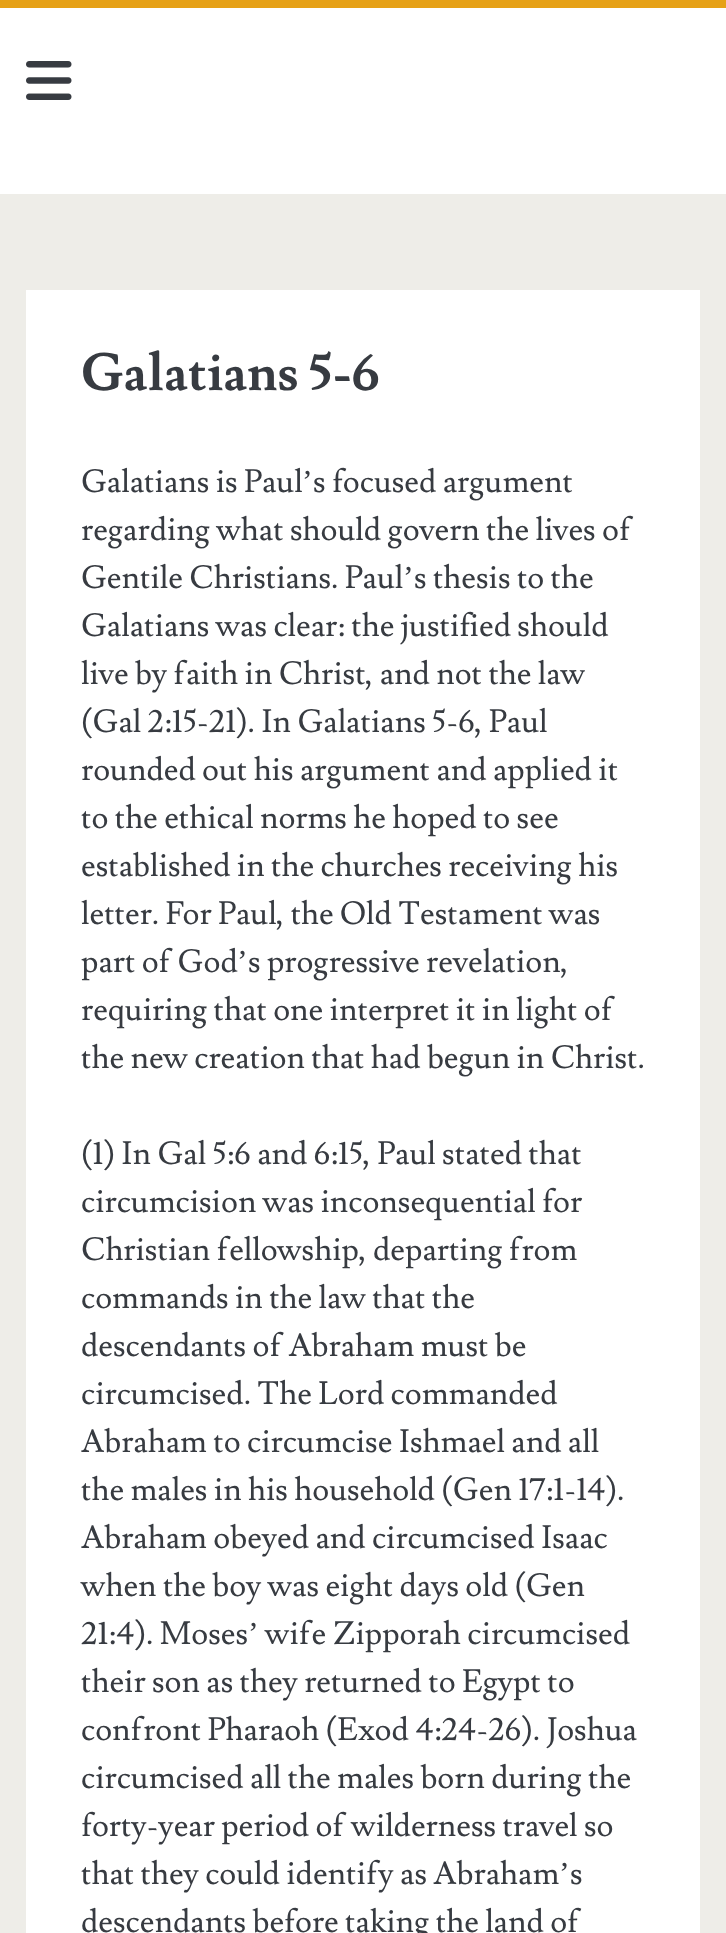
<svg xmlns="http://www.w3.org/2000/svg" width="726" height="1933">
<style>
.a{font:bold 52px Lusitana;fill:#373b41}
.b{font:32px Lusitana;fill:#373b41}
.c{font:32px Liberation Serif;fill:#373b41}
</style>
<rect width="100%" height="100%" fill="#eeede8"/>
<path fill="#fff" d="M0 8h726v186H0z"/>
<path fill="#e6a117" d="M0 0h726v8H0z"/>
<image href="1.png" x="26" y="61" width="46" height="39"/>
<path fill="#fff" d="M26 290h674v1643H26z"/>
<text class="a" x="81" y="390">Galatians 5-6</text>
<text class="b" x="81" y="492">Galatians is Paul</text>
<text class="c" x="302" y="492">’</text>
<text class="b" x="313" y="492">s focused argument</text>
<text class="b" x="81" y="540">regarding what should govern the lives of</text>
<text class="b" x="81" y="588">Gentile Christians. Paul</text>
<text class="c" x="403" y="588">’</text>
<text class="b" x="414" y="588">s thesis to the</text>
<text class="b" x="81" y="636">Galatians was clear: the justified should</text>
<text class="b" x="81" y="684">live by faith in Christ, and not the law</text>
<text class="b" x="81" y="732">(Gal 2:15-21). In Galatians 5-6, Paul</text>
<text class="b" x="81" y="780">rounded out his argument and applied it</text>
<text class="b" x="81" y="828">to the ethical norms he hoped to see</text>
<text class="b" x="81" y="876">established in the churches receiving his</text>
<text class="b" x="81" y="924">letter. For Paul, the Old Testament was</text>
<text class="b" x="81" y="972">part of God</text>
<text class="c" x="237" y="972">’</text>
<text class="b" x="248" y="972">s progressive revelation,</text>
<text class="b" x="81" y="1020">requiring that one interpret it in light of</text>
<text class="b" x="81" y="1068">the new creation that had begun in Christ.</text>
<text class="b" x="81" y="1164">(1) In Gal 5:6 and 6:15, Paul stated that</text>
<text class="b" x="81" y="1212">circumcision was inconsequential for</text>
<text class="b" x="81" y="1260">Christian fellowship, departing from</text>
<text class="b" x="81" y="1308">commands in the law that the</text>
<text class="b" x="81" y="1356">descendants of Abraham must be</text>
<text class="b" x="81" y="1404">circumcised. The Lord commanded</text>
<text class="b" x="81" y="1452">Abraham to circumcise Ishmael and all</text>
<text class="b" x="81" y="1500">the males in his household (Gen 17:1-14).</text>
<text class="b" x="81" y="1548">Abraham obeyed and circumcised Isaac</text>
<text class="b" x="81" y="1596">when the boy was eight days old (Gen</text>
<text class="b" x="81" y="1644">21:4). Moses</text>
<text class="c" x="248" y="1644">’</text>
<text class="b" x="265" y="1644">wife Zipporah circumcised</text>
<text class="b" x="81" y="1692">their son as they returned to Egypt to</text>
<text class="b" x="81" y="1740">confront Pharaoh (Exod 4:24-26). Joshua</text>
<text class="b" x="81" y="1788">circumcised all the males born during the</text>
<text class="b" x="81" y="1836">forty-year period of wilderness travel so</text>
<text class="b" x="81" y="1884">that they could identify as Abraham</text>
<text class="c" x="559" y="1884">’</text>
<text class="b" x="570" y="1884">s</text>
<text class="b" x="81" y="1932">descendants before taking the land of</text>
</svg>
